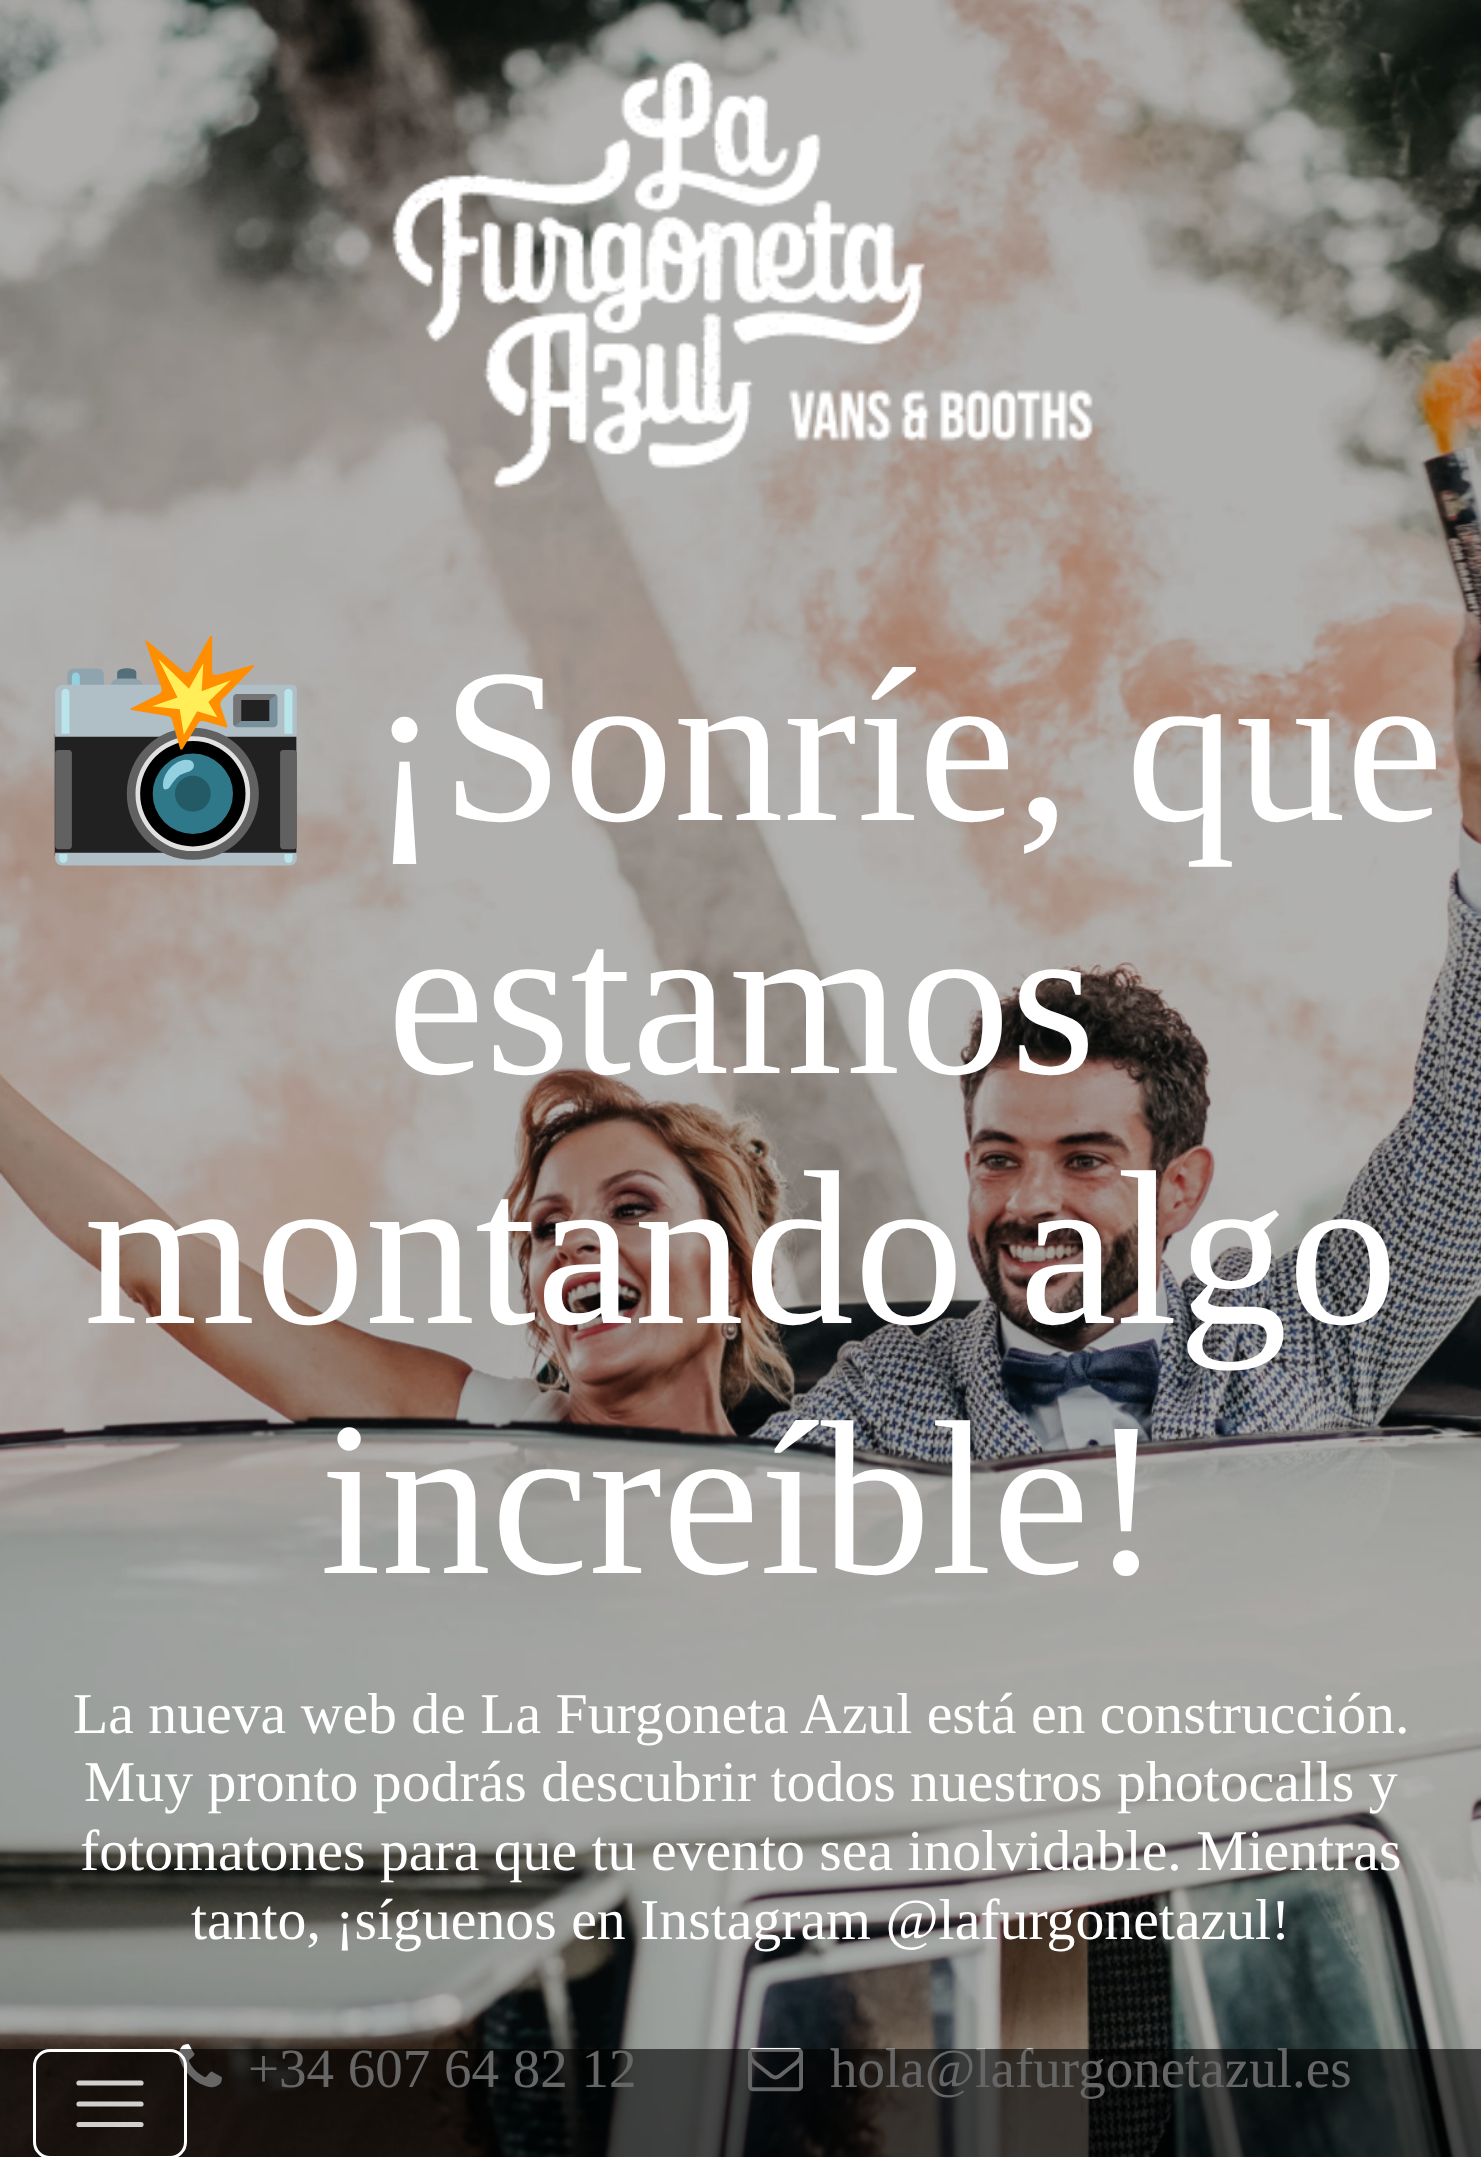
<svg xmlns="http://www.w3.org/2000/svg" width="1481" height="2157">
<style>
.a{font:220px Noto Color Emoji;fill:#fff}
.b{font:220px Liberation Serif;fill:#fff}
.c{font:57.75px Liberation Serif;fill:#fff}
.d{font:55px Liberation Serif;fill:#fff}
</style>
<rect width="100%" height="100%" fill="#fff"/>
<image href="1.png" x="0" y="0" width="1481" height="2157"/>
<image href="2.png" x="392" y="59" width="701" height="429"/>
<image href="3.png" x="178" y="2044" width="44" height="44"/>
<image href="4.png" x="748" y="2047" width="55" height="45"/>
<text class="a" x="39" y="820">📸</text>
<text class="b" x="368" y="820">¡Sonríe, que</text>
<text class="b" x="387" y="1073">estamos</text>
<text class="b" x="84" y="1323">montando algo</text>
<text class="b" x="320" y="1573">increíble!</text>
<text class="c" x="73" y="1733">La nueva web de La Furgoneta Azul está en construcción.</text>
<text class="c" x="84" y="1801">Muy pronto podrás descubrir todos nuestros photocalls y</text>
<text class="c" x="80" y="1870">fotomatones para que tu evento sea inolvidable. Mientras</text>
<text class="c" x="191" y="1939">tanto, ¡síguenos en Instagram @lafurgonetazul!</text>
<text class="d" x="248" y="2087">+34 607 64 82 12</text>
<text class="d" x="830" y="2087">hola@lafurgonetazul.es</text>
<path fill="#00000099" d="M0 2049h1481v108H0z"/>
<rect fill="none" stroke="#fff" stroke-width="3" x="34.5" y="2050.5" width="151" height="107" rx="15.5"/>
<path fill="none" stroke="#ffffffcc" stroke-width="5.2" stroke-linecap="round" d="M79 2083h62m-62 21h62m-62 20.5h62"/>
</svg>
